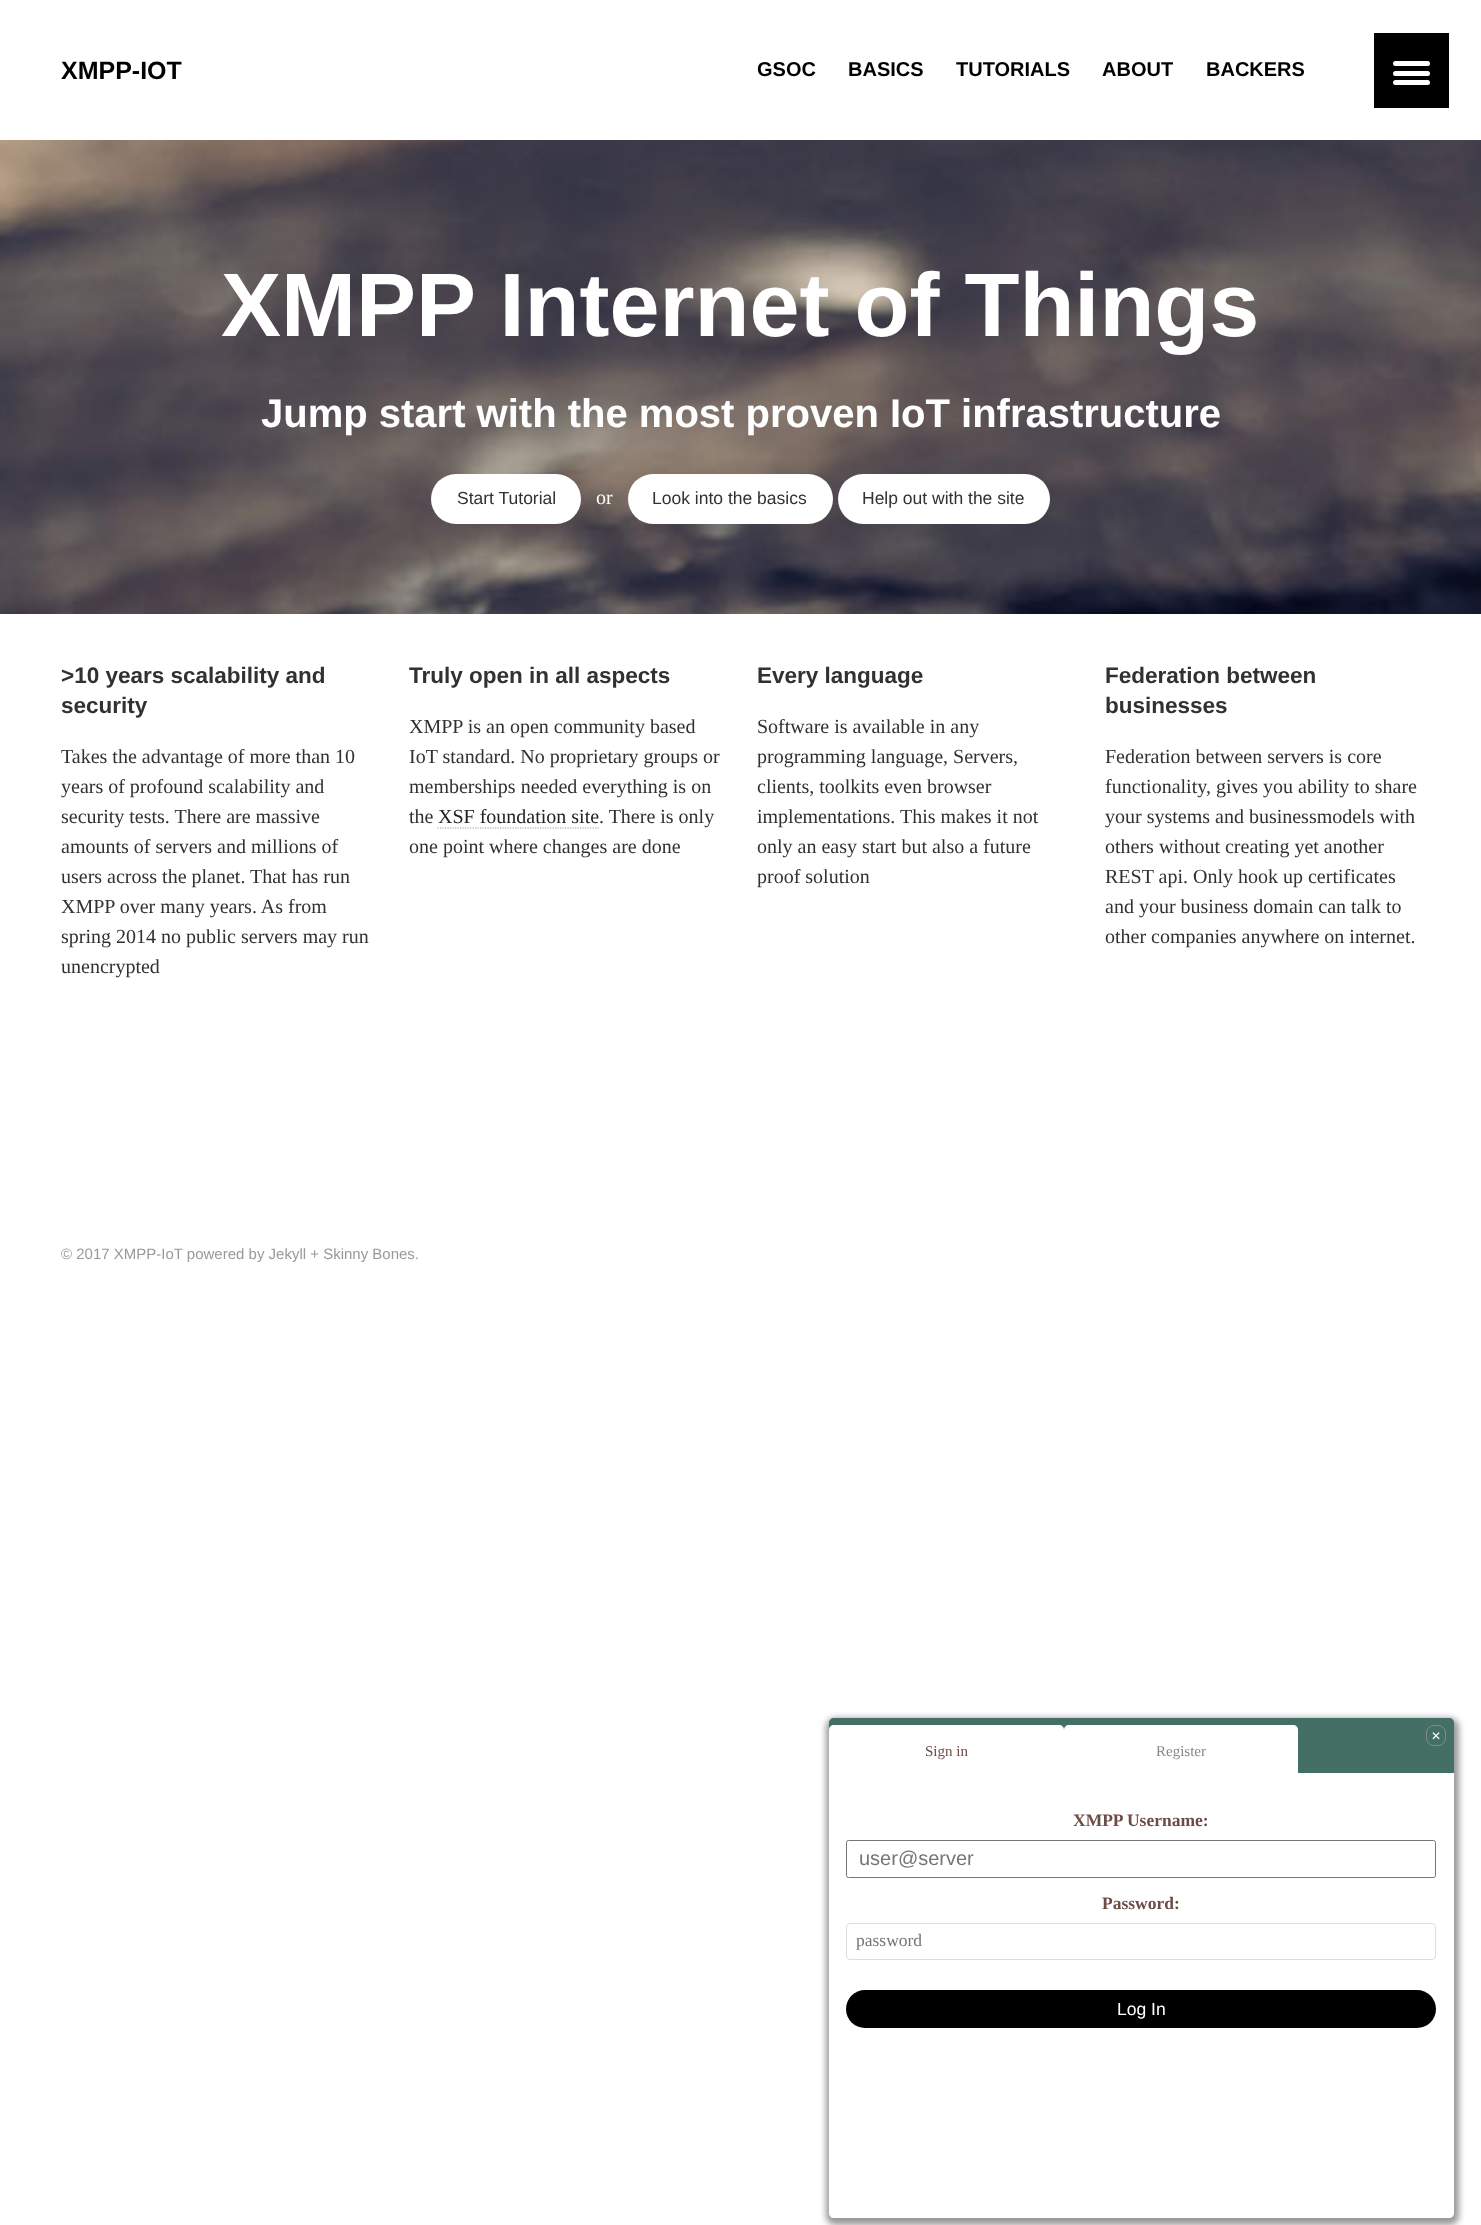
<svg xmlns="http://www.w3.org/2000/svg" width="1481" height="2225">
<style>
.a{font:bold 25px Liberation Sans;fill:#000}
.b{font:bold 20px Liberation Sans;fill:#000}
.c{font:bold 90px Liberation Sans;fill:#fff}
.d{font:bold 40px Liberation Sans;fill:#fff}
.e{font:17.5px Liberation Sans;fill:#313130}
.f{font:20px Liberation Serif;fill:#fff}
.g{font:bold 22.5px Liberation Sans;fill:#313130}
.h{font:20px Liberation Serif;fill:#313130}
.i{font:20px Liberation Serif;fill:#222}
.j{font:15px Liberation Sans;fill:#999}
.k{font:12px DejaVu Sans;fill:#fff}
.l{font:15px Liberation Serif;fill:#6c4c44}
.m{font:15px Liberation Serif;fill:#888}
.n{font:bold 17.5px Liberation Serif;fill:#6c4c44}
.o{font:20px Liberation Sans;fill:#757575}
.p{font:17.5px Liberation Serif;fill:#757575}
.q{font:17.5px Liberation Sans;fill:#fff}
</style>
<rect width="100%" height="100%" fill="#fff"/>
<path fill="#000" d="M1374 33h75v75H1374z"/>
<rect fill="#fff" x="1393" y="71" width="37" height="5" rx="2.5"/>
<rect fill="#fff" x="1393" y="61" width="37" height="5" rx="2.5"/>
<rect fill="#fff" x="1393" y="80" width="37" height="5" rx="2.5"/>
<image href="1.png" x="0" y="140" width="1481" height="474"/>
<rect fill="#fff" x="431" y="474" width="150" height="50" rx="25"/>
<rect fill="#fff" x="628" y="474" width="205" height="50" rx="25"/>
<rect fill="#fff" x="838" y="474" width="212" height="50" rx="25"/>
<path fill="none" stroke="#a2a2a2" stroke-width="1.2" stroke-dasharray="1.25 1.25" d="M437.5 828h161.5"/>
<rect fill="#00000066" filter="blur(3px)" x="826" y="1718" width="633" height="507" rx="9"/>
<path fill="#436f64" d="M834 1718h615c3 0 5 2 5 5v50h-625v-50c0-3 2-5 5-5z"/>
<rect fill="none" stroke="#888" x="1426.5" y="1725.5" width="19" height="20" rx="7.5"/>
<path fill="#fff" d="M834 1725h225c3 0 5 2 5 5v50h-235v-50c0-3 2-5 5-5z"/>
<path fill="#fff" d="M1069 1725h224c3 0 5 2 5 5v49h-234v-49c0-3 2-5 5-5z"/>
<path fill="#fff" d="M829 1773h625v440c0 3-2 5-5 5h-615c-3 0-5-2-5-5z"/>
<rect fill="none" stroke="#767676" x="846.5" y="1840.5" width="589" height="37" rx="2"/>
<rect fill="none" stroke="#ddd" x="846.5" y="1923.5" width="589" height="36" rx="3.5"/>
<rect fill="#000" x="846" y="1990" width="590" height="38" rx="19"/>
<text class="a" x="61" y="79">XMPP-IOT</text>
<text class="b" x="757" y="76">GSOC</text>
<text class="b" x="848" y="76">BASICS</text>
<text class="b" x="956" y="76">TUTORIALS</text>
<text class="b" x="1102" y="76">ABOUT</text>
<text class="b" x="1206" y="76">BACKERS</text>
<text class="c" x="221" y="336">XMPP Internet of Things</text>
<text class="d" x="261" y="427">Jump start with the most proven IoT infrastructure</text>
<text class="e" x="457" y="504">Start Tutorial</text>
<text class="f" x="596" y="504">or</text>
<text class="e" x="652" y="504">Look into the basics</text>
<text class="e" x="862" y="504">Help out with the site</text>
<text class="g" x="61" y="683">&gt;10 years scalability and</text>
<text class="g" x="61" y="713">security</text>
<text class="h" x="61" y="763">Takes the advantage of more than 10</text>
<text class="h" x="61" y="793">years of profound scalability and</text>
<text class="h" x="61" y="823">security tests. There are massive</text>
<text class="h" x="61" y="853">amounts of servers and millions of</text>
<text class="h" x="61" y="883">users across the planet. That has run</text>
<text class="h" x="61" y="913">XMPP over many years. As from</text>
<text class="h" x="61" y="943">spring 2014 no public servers may run</text>
<text class="h" x="61" y="973">unencrypted</text>
<text class="g" x="409" y="683">Truly open in all aspects</text>
<text class="h" x="409" y="733">XMPP is an open community based</text>
<text class="h" x="409" y="763">IoT standard. No proprietary groups or</text>
<text class="h" x="409" y="793">memberships needed everything is on</text>
<text class="h" x="409" y="823">the</text>
<text class="i" x="438" y="823">XSF foundation site</text>
<text class="h" x="599" y="823">. There is only</text>
<text class="h" x="409" y="853">one point where changes are done</text>
<text class="g" x="757" y="683">Every language</text>
<text class="h" x="757" y="733">Software is available in any</text>
<text class="h" x="757" y="763">programming language, Servers,</text>
<text class="h" x="757" y="793">clients, toolkits even browser</text>
<text class="h" x="757" y="823">implementations. This makes it not</text>
<text class="h" x="757" y="853">only an easy start but also a future</text>
<text class="h" x="757" y="883">proof solution</text>
<text class="g" x="1105" y="683">Federation between</text>
<text class="g" x="1105" y="713">businesses</text>
<text class="h" x="1105" y="763">Federation between servers is core</text>
<text class="h" x="1105" y="793">functionality, gives you ability to share</text>
<text class="h" x="1105" y="823">your systems and businessmodels with</text>
<text class="h" x="1105" y="853">others without creating yet another</text>
<text class="h" x="1105" y="883">REST api. Only hook up certificates</text>
<text class="h" x="1105" y="913">and your business domain can talk to</text>
<text class="h" x="1105" y="943">other companies anywhere on internet.</text>
<text class="j" x="61" y="1259">© 2017 XMPP-IoT powered by Jekyll + Skinny Bones.</text>
<text class="k" x="1431" y="1740">✕</text>
<text class="l" x="925" y="1756">Sign in</text>
<text class="m" x="1156" y="1756">Register</text>
<text class="n" x="1073" y="1826">XMPP Username:</text>
<text class="o" x="859" y="1865">user@server</text>
<text class="n" x="1102" y="1909">Password:</text>
<text class="p" x="856" y="1946">password</text>
<text class="q" x="1117" y="2015">Log In</text>
</svg>
